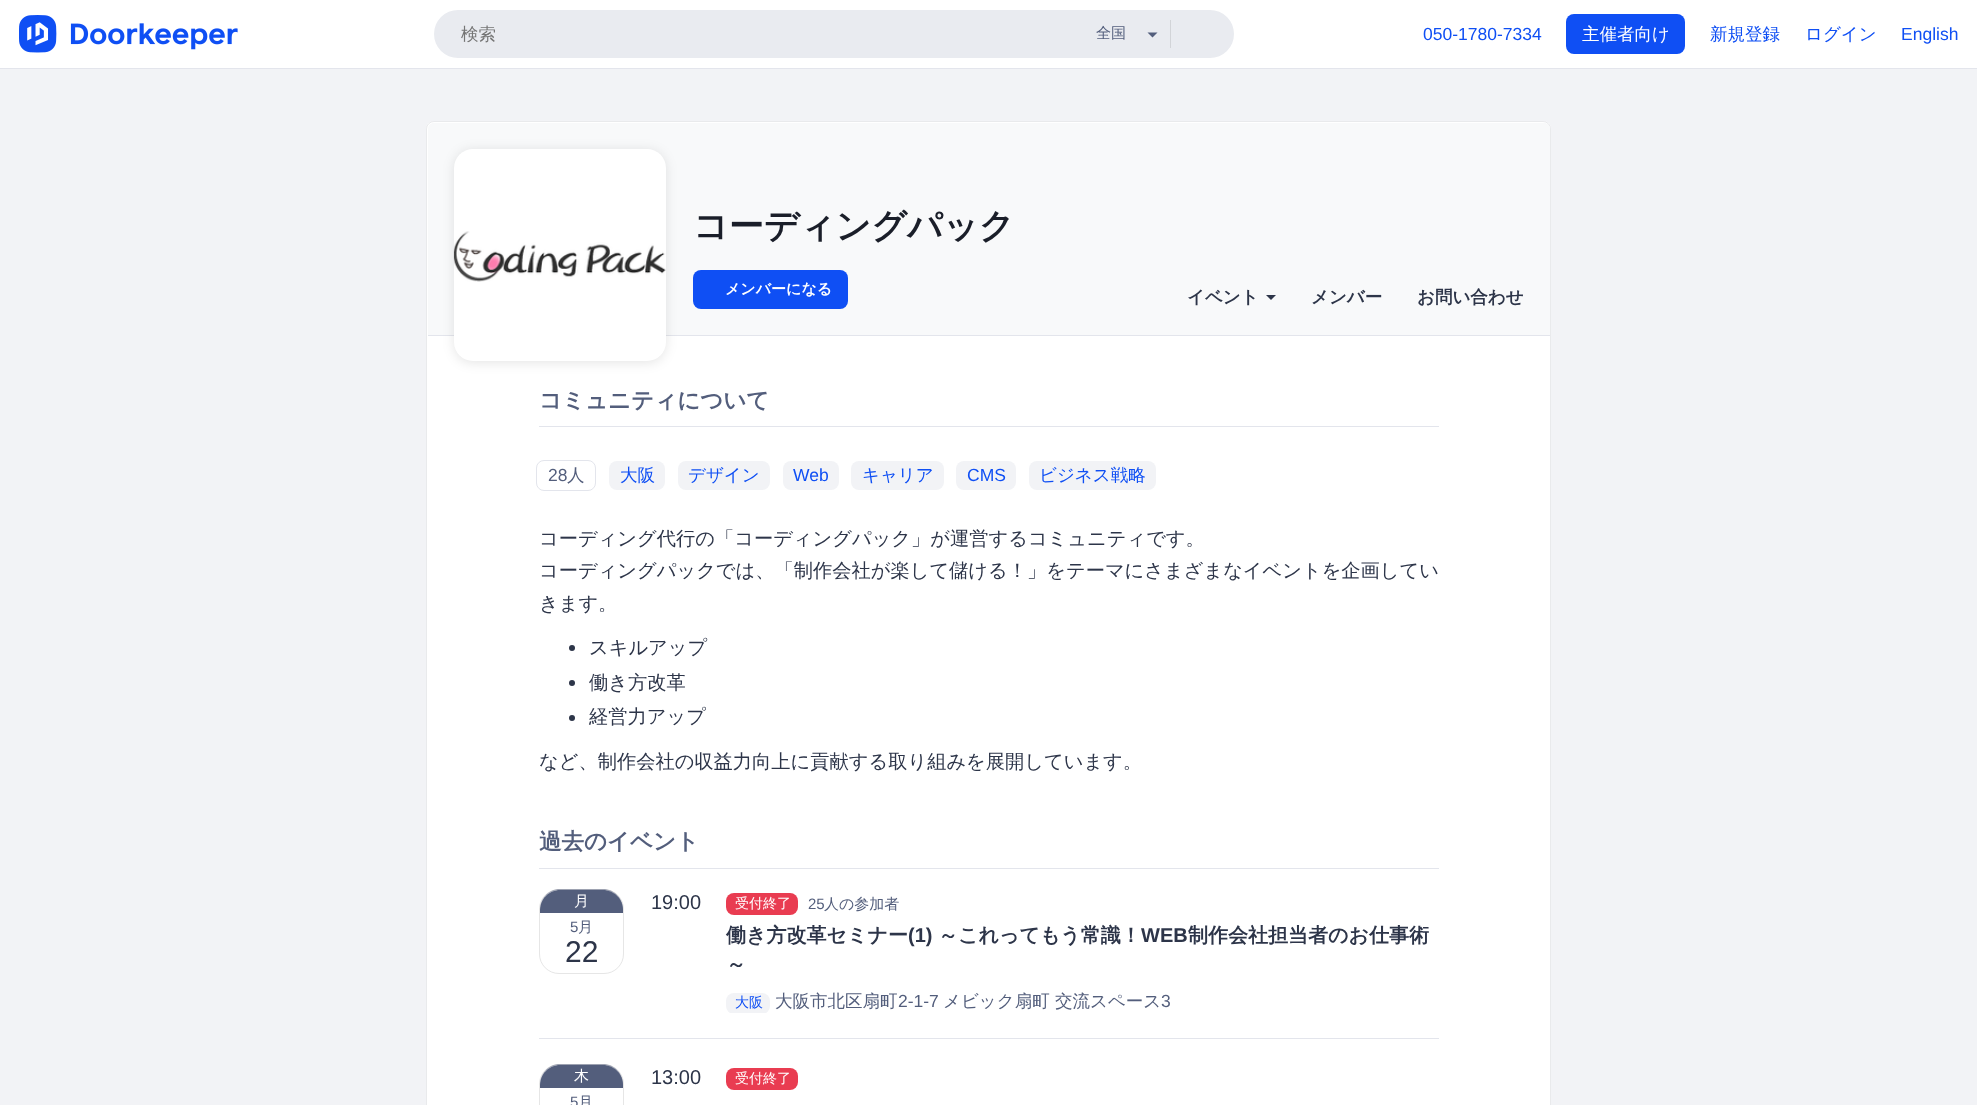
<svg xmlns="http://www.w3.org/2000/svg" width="1977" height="1105">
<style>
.a{font:500 17.5px WenQuanYi Zen Hei;fill:#757575}
.b{font:500 15px WenQuanYi Zen Hei;fill:#535e7c}
.c{font:17.5px Liberation Sans;fill:#0f4ff4}
.d{font:500 17.5px WenQuanYi Zen Hei;fill:#fff}
.e{font:500 17.5px WenQuanYi Zen Hei;fill:#0f4ff4}
.f{font:bold 35px WenQuanYi Zen Hei;fill:#1a1e29}
.g{font:bold 15px WenQuanYi Zen Hei;fill:#fff}
.h{font:bold 17.5px WenQuanYi Zen Hei;fill:#2d3549}
.i{font:bold 22.5px WenQuanYi Zen Hei;fill:#535e7c}
.j{font:17.5px Liberation Sans;fill:#535e7c}
.k{font:500 17.5px WenQuanYi Zen Hei;fill:#535e7c}
.l{font:500 19.25px WenQuanYi Zen Hei;fill:#2d3549}
.m{font:500 15px WenQuanYi Zen Hei;fill:#fff}
.n{font:15px Liberation Sans;fill:#535e7c}
.o{font:30px Liberation Sans;fill:#2d3549}
.p{font:20px Liberation Sans;fill:#2d3549}
.q{font:500 14px WenQuanYi Zen Hei;fill:#fff}
.r{font:bold 20px WenQuanYi Zen Hei;fill:#2d3549}
.s{font:bold 20px Liberation Sans;fill:#2d3549}
.t{font:500 14px WenQuanYi Zen Hei;fill:#0f4ff4}
</style>
<defs>
<clipPath id="clip1"><path d="M726 989h713v24H726z"/></clipPath>
</defs>
<rect width="100%" height="100%" fill="#fff"/>
<path fill="#e3e5ec" d="M0 68h1977v1H0z"/>
<image href="1.png" x="19" y="15" width="219" height="38"/>
<rect fill="#e9ebf0" x="434" y="10" width="800" height="48" rx="24"/>
<path fill="#d2d4d8" d="M1170 20h1v28H1170z"/>
<path fill="#535e7c" d="M1147.5 32.5h10l-5 5z"/>
<rect fill="#0f4ff4" x="1566" y="14" width="119" height="40" rx="8"/>
<path fill="#f2f3f6" d="M0 69h1977v1036H0z"/>
<rect fill="#fff" x="426" y="121" width="1125" height="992" rx="8"/>
<rect fill="none" stroke="#2c31461a" x="426.5" y="121.5" width="1124" height="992" rx="7.5"/>
<path fill="#f8f9fa" d="M434 123h1110c3.5 0 6 2.5 6 6v207h-1122v-207c0-3.5 2.5-6 6-6z"/>
<path fill="#e3e5ec" d="M428 335h1122v1H428z"/>
<rect fill="#0000001a" filter="blur(6px)" x="454" y="150" width="212" height="213" rx="19"/>
<rect fill="#fff" x="454" y="149" width="212" height="212" rx="19"/>
<image href="2.png" x="453" y="231" width="213" height="51"/>
<rect fill="#0f4ff4" x="693" y="270" width="155" height="39" rx="8"/>
<path fill="#2d3549" d="M1266 295h10l-5 5z"/>
<path fill="#e3e5ec" d="M539 426h900v1H539z"/>
<rect fill="none" stroke="#e3e5ec" x="536.5" y="460.5" width="59" height="30" rx="7.5"/>
<rect fill="#f2f3f6" x="609" y="461" width="56" height="29" rx="8"/>
<rect fill="#f2f3f6" x="678" y="461" width="92" height="29" rx="8"/>
<rect fill="#f2f3f6" x="783" y="461" width="56" height="29" rx="8"/>
<rect fill="#f2f3f6" x="851" y="461" width="93" height="29" rx="8"/>
<rect fill="#f2f3f6" x="956" y="461" width="60" height="29" rx="8"/>
<rect fill="#f2f3f6" x="1029" y="461" width="127" height="29" rx="8"/>
<circle fill="#2d3549" cx="572" cy="648" r="3"/>
<circle fill="#2d3549" cx="572" cy="683" r="3"/>
<circle fill="#2d3549" cx="572" cy="718" r="3"/>
<path fill="#e3e5ec" d="M539 868h900v1H539z"/>
<path fill="#e3e5ec" d="M539 1038h900v1H539z"/>
<rect fill="none" stroke="#e6e6e6" x="539.5" y="889.5" width="84" height="84" rx="19.5"/>
<path fill="#535e7c80" d="M560 889h43c11 0 20 9 20 20v2h-1v-1c0-11-8-20-20-20h-42c-11 0-20 9-20 20c0-11 8-21 20-21z"/>
<path fill="#535e7c" d="M560 890h43c11 0 20 9 20 20v3h-83v-3c0-11 9-20 20-20z"/>
<rect fill="#e93c51" x="726" y="893" width="72" height="22" rx="8"/>
<g clip-path="url(#clip1)">
<rect fill="#f2f3f6" x="726" y="993" width="44" height="21" rx="8"/>
</g>
<rect fill="none" stroke="#e6e6e6" x="539.5" y="1064.5" width="84" height="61" rx="19.5"/>
<path fill="#535e7c80" d="M560 1064h43c11 0 20 9 20 20v2h-1v-1c0-11-8-20-20-20h-42c-11 0-20 9-20 20c0-11 8-21 20-21z"/>
<path fill="#535e7c" d="M560 1065h43c11 0 20 9 20 20v3h-83v-3c0-11 9-20 20-20z"/>
<rect fill="#e93c51" x="726" y="1068" width="72" height="22" rx="8"/>
<text class="a" x="461" y="40">検索</text>
<text class="b" x="1096" y="38">全国</text>
<text class="c" x="1423" y="40">050-1780-7334</text>
<text class="d" x="1582" y="40">主催者向け</text>
<text class="e" x="1710" y="40">新規登録</text>
<text class="e" x="1805" y="40">ログイン</text>
<text class="c" x="1901" y="40">English</text>
<text class="f" x="693" y="238">コーディングパック</text>
<text class="g" x="725" y="294">メンバーになる</text>
<text class="h" x="1187" y="303">イベント</text>
<text class="h" x="1311" y="303">メンバー</text>
<text class="h" x="1417" y="303">お問い合わせ</text>
<text class="i" x="539" y="408">コミュニティについて</text>
<text class="j" x="548" y="481">28</text>
<text class="k" x="567" y="481">人</text>
<text class="e" x="620" y="481">大阪</text>
<text class="e" x="688" y="481">デザイン</text>
<text class="c" x="793" y="481">Web</text>
<text class="e" x="862" y="481">キャリア</text>
<text class="c" x="967" y="481">CMS</text>
<text class="e" x="1039" y="481">ビジネス戦略</text>
<text class="l" x="539" y="545">コーディング代行の「コーディングパック」が運営するコミュニティです。</text>
<text class="l" x="539" y="577">コーディングパックでは、「制作会社が楽して儲ける！」をテーマにさまざまなイベントを企画してい</text>
<text class="l" x="539" y="610">きます。</text>
<text class="l" x="589" y="654">スキルアップ</text>
<text class="l" x="589" y="689">働き方改革</text>
<text class="l" x="589" y="723">経営力アップ</text>
<text class="l" x="539" y="768">など、制作会社の収益力向上に貢献する取り組みを展開しています。</text>
<text class="i" x="539" y="849">過去のイベント</text>
<text class="m" x="574" y="906">月</text>
<text class="n" x="570" y="932">5</text>
<text class="b" x="578" y="932">月</text>
<text class="o" x="565" y="962">22</text>
<text class="p" x="651" y="909">19:00</text>
<text class="q" x="735" y="908">受付終了</text>
<text class="n" x="808" y="909">25</text>
<text class="b" x="824" y="909">人の参加者</text>
<text class="r" x="726" y="942">働き方改革セミナー</text>
<text class="s" x="908" y="942">(1)</text>
<text class="r" x="938" y="942">～これってもう常識！</text>
<text class="s" x="1141" y="942">WEB</text>
<text class="r" x="1188" y="942">制作会社担当者のお仕事術</text>
<text class="r" x="726" y="971">～</text>
<text class="t" x="735" y="1007">大阪</text>
<text class="k" x="775" y="1007">大阪市北区扇町</text>
<text class="j" x="898" y="1007">2-1-7</text>
<text class="k" x="943" y="1007">メビック扇町 交流スペース</text>
<text class="j" x="1161" y="1007">3</text>
<text class="m" x="574" y="1081">木</text>
<text class="n" x="570" y="1107">5</text>
<text class="b" x="578" y="1107">月</text>
<text class="p" x="651" y="1084">13:00</text>
<text class="q" x="735" y="1083">受付終了</text>
</svg>
